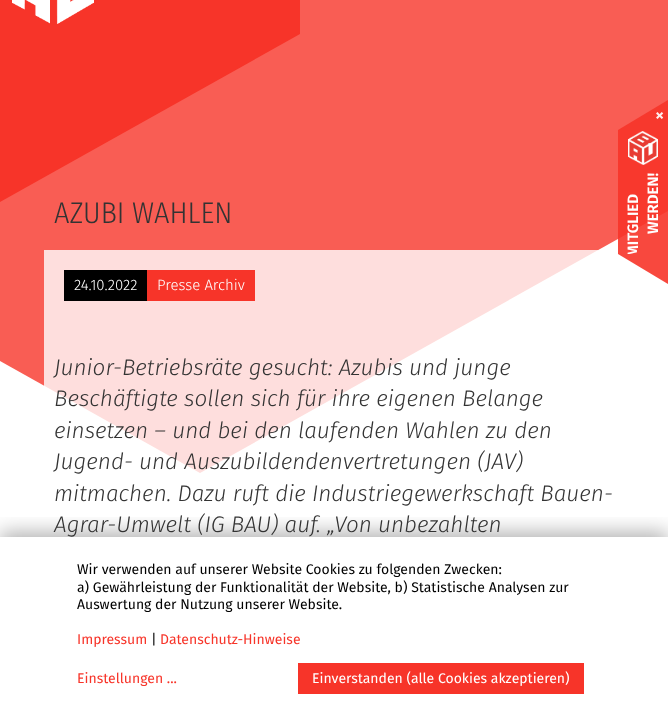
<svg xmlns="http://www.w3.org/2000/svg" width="668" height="715">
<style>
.a{font:600 18px Fira Sans;fill:#feefee}
.b{font:600 15px Fira Sans;fill:#fff}
.c{font:300 30px Fira Sans Condensed;fill:#333}
.d{font:300 15px Fira Sans;fill:#fff}
.e{font:italic 300 22.5px Fira Sans;fill:#333}
.f{font:14px Fira Sans;fill:#000}
.g{font:14px Fira Sans;fill:#f73429}
.h{font:14px Fira Sans;fill:#fff}
</style>
<defs>
<clipPath id="clip1"><path d="M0 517h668v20H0z"/></clipPath>
</defs>
<rect width="100%" height="100%" fill="#fff"/>
<path fill="#f95d54" fill-rule="evenodd" d="M-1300-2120l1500-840l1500 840v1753l-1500 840l-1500-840z"/>
<path fill="#f73429" fill-rule="evenodd" d="M-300-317l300-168l300 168v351l-300 168l-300-168z"/>
<image href="1.png" x="12" y="0" width="82" height="24"/>
<path fill="#f7382d" d="M668 130h-50l50-30z"/>
<path fill="#f73429e6" d="M618 130h50v124H618z"/>
<image href="2.png" x="628" y="131" width="30" height="34"/>
<path fill="#ffffffcc" d="M44 250h554v223H44z"/>
<path fill="#000" d="M64 270h83v31H64z"/>
<path fill="#f73429" d="M147 270h108v31H147z"/>
<g clip-path="url(#clip1)">
<path fill="#0000004d" filter="blur(10px)" d="M0 532h668v178H0z"/>
</g>
<path fill="#f73429" d="M298 663h286v31H298z"/>
<text class="a" x="655" y="121">×</text>
<text class="b" x="638" y="257" transform="rotate(-90 638 257)">MITGLIED</text>
<text class="b" x="658" y="234" transform="rotate(-90 658 234)">WERDEN!</text>
<path fill="#f8483e" d="M668 254v30l-50-30z"/>
<text class="c" x="54" y="223">AZUBI WAHLEN</text>
<text class="d" x="74" y="290">24.10.2022</text>
<text class="d" x="157" y="290">Presse Archiv</text>
<text class="e" x="54" y="375">Junior-Betriebsräte gesucht: Azubis und junge</text>
<text class="e" x="54" y="406">Beschäftigte sollen sich für ihre eigenen Belange</text>
<text class="e" x="54" y="438">einsetzen – und bei den laufenden Wahlen zu den</text>
<text class="e" x="54" y="469">Jugend- und Auszubildendenvertretungen (JAV)</text>
<text class="e" x="54" y="501">mitmachen. Dazu ruft die Industriegewerkschaft Bauen-</text>
<text class="e" x="54" y="532">Agrar-Umwelt (IG BAU) auf. „Von unbezahlten</text>
<text class="f" x="77" y="574">Wir verwenden auf unserer Website Cookies zu folgenden Zwecken:</text>
<text class="f" x="77" y="592">a) Gewährleistung der Funktionalität der Website, b) Statistische Analysen zur</text>
<text class="f" x="77" y="609">Auswertung der Nutzung unserer Website.</text>
<text class="g" x="77" y="644">Impressum</text>
<text class="f" x="151" y="644">|</text>
<text class="g" x="160" y="644">Datenschutz-Hinweise</text>
<text class="g" x="77" y="683">Einstellungen ...</text>
<text class="h" x="312" y="683">Einverstanden (alle Cookies akzeptieren)</text>
</svg>
